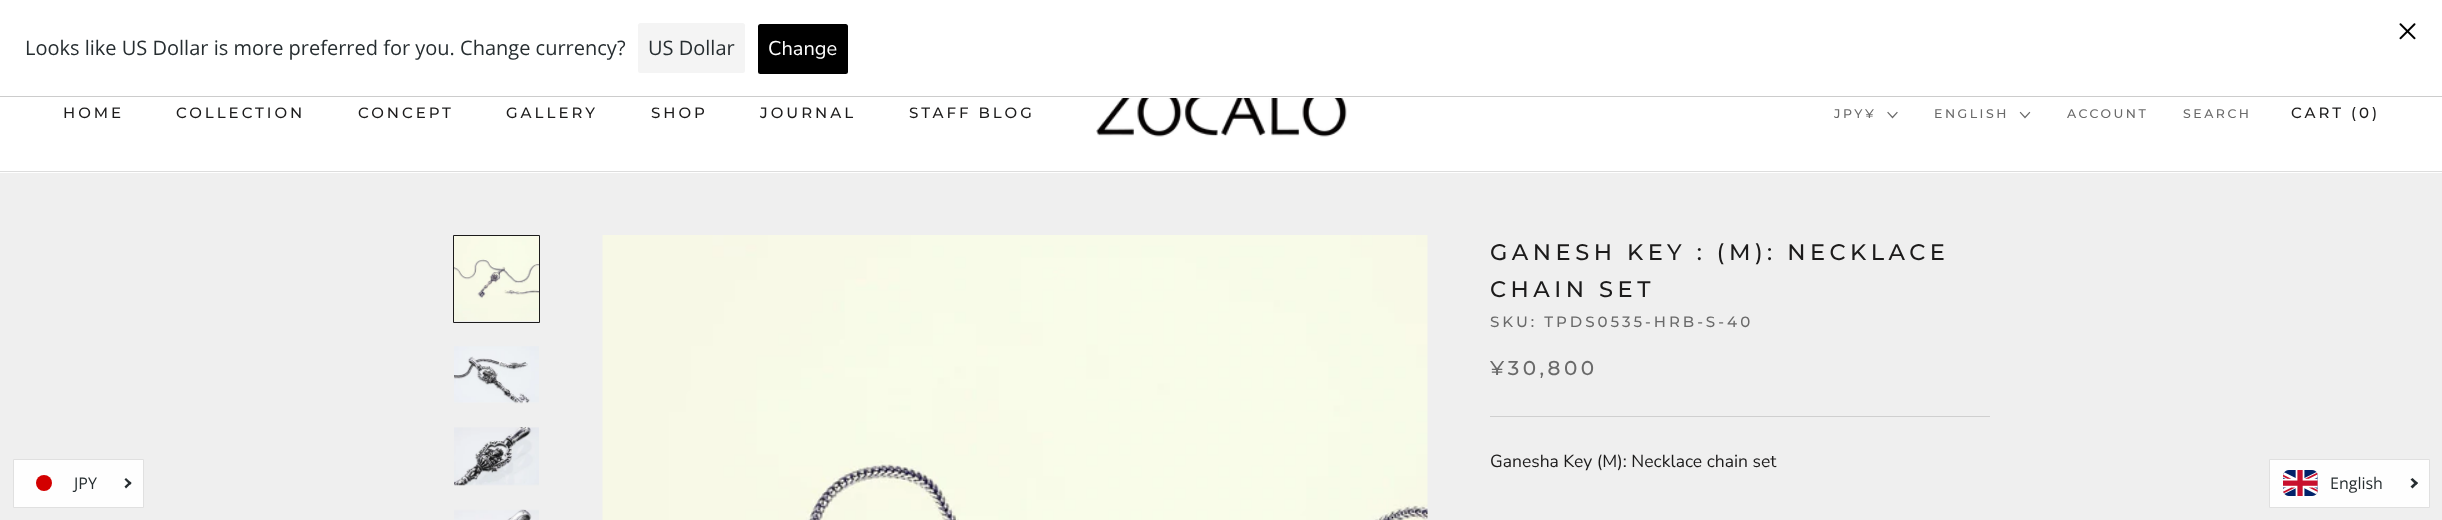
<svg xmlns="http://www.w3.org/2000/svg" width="2442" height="520">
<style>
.a{font:20px Open Sans;fill:#272e31}
.b{font:20px Nunito Sans;fill:#fff}
.c{font:500 15px Montserrat;letter-spacing:3px;fill:#1c1b1b}
.d{font:500 12.5px Montserrat;letter-spacing:2.5px;fill:#6a6a6a}
.e{font:500 22.5px Montserrat;letter-spacing:4.5px;fill:#1c1b1b}
.f{font:500 15px Montserrat;letter-spacing:3px;fill:#6a6a6a}
.g{font:500 20px Montserrat;letter-spacing:3.5px;fill:#6a6a6a}
.h{font:17.5px Nunito Sans;fill:#1c1b1b}
.i{font:16px Open Sans;fill:#272e31}
</style>
<rect width="100%" height="100%" fill="#efefef"/>
<path fill="#fff" d="M0 0h2442v173H0z"/>
<path fill="#ccc" d="M0 96h2442v1H0z"/>
<image href="1.png" x="2399" y="23" width="17" height="17"/>
<rect fill="#f4f4f4" x="638" y="23" width="107" height="50" rx="2.5"/>
<rect fill="#000" x="758" y="24" width="90" height="50" rx="2.5"/>
<path fill="#ddd" d="M0 171h2442v1H0z"/>
<image href="2.png" x="1096" y="98" width="251" height="39"/>
<path fill="none" stroke="#6a6a6a" stroke-width="1.2" stroke-linecap="square" d="M1897 112.5l-4.5 5l-4.5-5"/>
<path fill="none" stroke="#6a6a6a" stroke-width="1.2" stroke-linecap="square" d="M2029.5 112.5l-4.5 5l-4.5-5"/>
<path fill="none" stroke="#1c1b1b" d="M453.5 235.5h86v87H453.5z"/>
<image href="3.png" x="454" y="236" width="85" height="85"/>
<image href="4.png" x="454" y="346" width="85" height="58"/>
<image href="5.png" x="454" y="427" width="85" height="59"/>
<image href="6.png" x="454" y="509" width="85" height="11"/>
<image href="7.png" x="602" y="235" width="826" height="285"/>
<path fill="#cfcfcf" d="M1490 416h500v1H1490z"/>
<path fill="#fefefe" stroke="#e0e0e0" d="M13.5 459.5h130v48H13.5z"/>
<circle fill="#d30000" cx="44" cy="483" r="8"/>
<path fill="#272e31" d="M126 478l5.5 5l-1.5 2l-5.5-5.5z"/>
<path fill="#272e31" d="M130 481.5l1.5 1.5l-5.5 5.5l-1.5-2z"/>
<path fill="#fefefe" stroke="#e0e0e0" d="M2269.5 459.5h160v48H2269.5z"/>
<image href="8.png" x="2283" y="470" width="35" height="26"/>
<path fill="#272e31" d="M2412.5 478l5.5 5l-2 2l-5.5-5.5z"/>
<path fill="#272e31" d="M2416 481.5l2 1.5l-5.5 5.5l-2-2z"/>
<text class="a" x="25" y="55">Looks like US Dollar is more preferred for you. Change currency?</text>
<text class="a" x="648" y="55">US Dollar</text>
<text class="b" x="768" y="55">Change</text>
<text class="c" x="63" y="118">HOME</text>
<text class="c" x="176" y="118">COLLECTION</text>
<text class="c" x="358" y="118">CONCEPT</text>
<text class="c" x="506" y="118">GALLERY</text>
<text class="c" x="651" y="118">SHOP</text>
<text class="c" x="760" y="118">JOURNAL</text>
<text class="c" x="909" y="118">STAFF BLOG</text>
<text class="d" x="1834" y="118">JPY¥</text>
<text class="d" x="1934" y="118">ENGLISH</text>
<text class="d" x="2067" y="118">ACCOUNT</text>
<text class="d" x="2183" y="118">SEARCH</text>
<text class="c" x="2291" y="118">CART (0)</text>
<text class="e" x="1490" y="260">GANESH KEY : (M): NECKLACE</text>
<text class="e" x="1490" y="297">CHAIN SET</text>
<text class="f" x="1490" y="327">SKU: TPDS0535-HRB-S-40</text>
<text class="g" x="1490" y="375">¥30,800</text>
<text class="h" x="1490" y="467">Ganesha Key (M): Necklace chain set</text>
<text class="i" x="74" y="489">JPY</text>
<text class="i" x="2330" y="489">English</text>
</svg>
